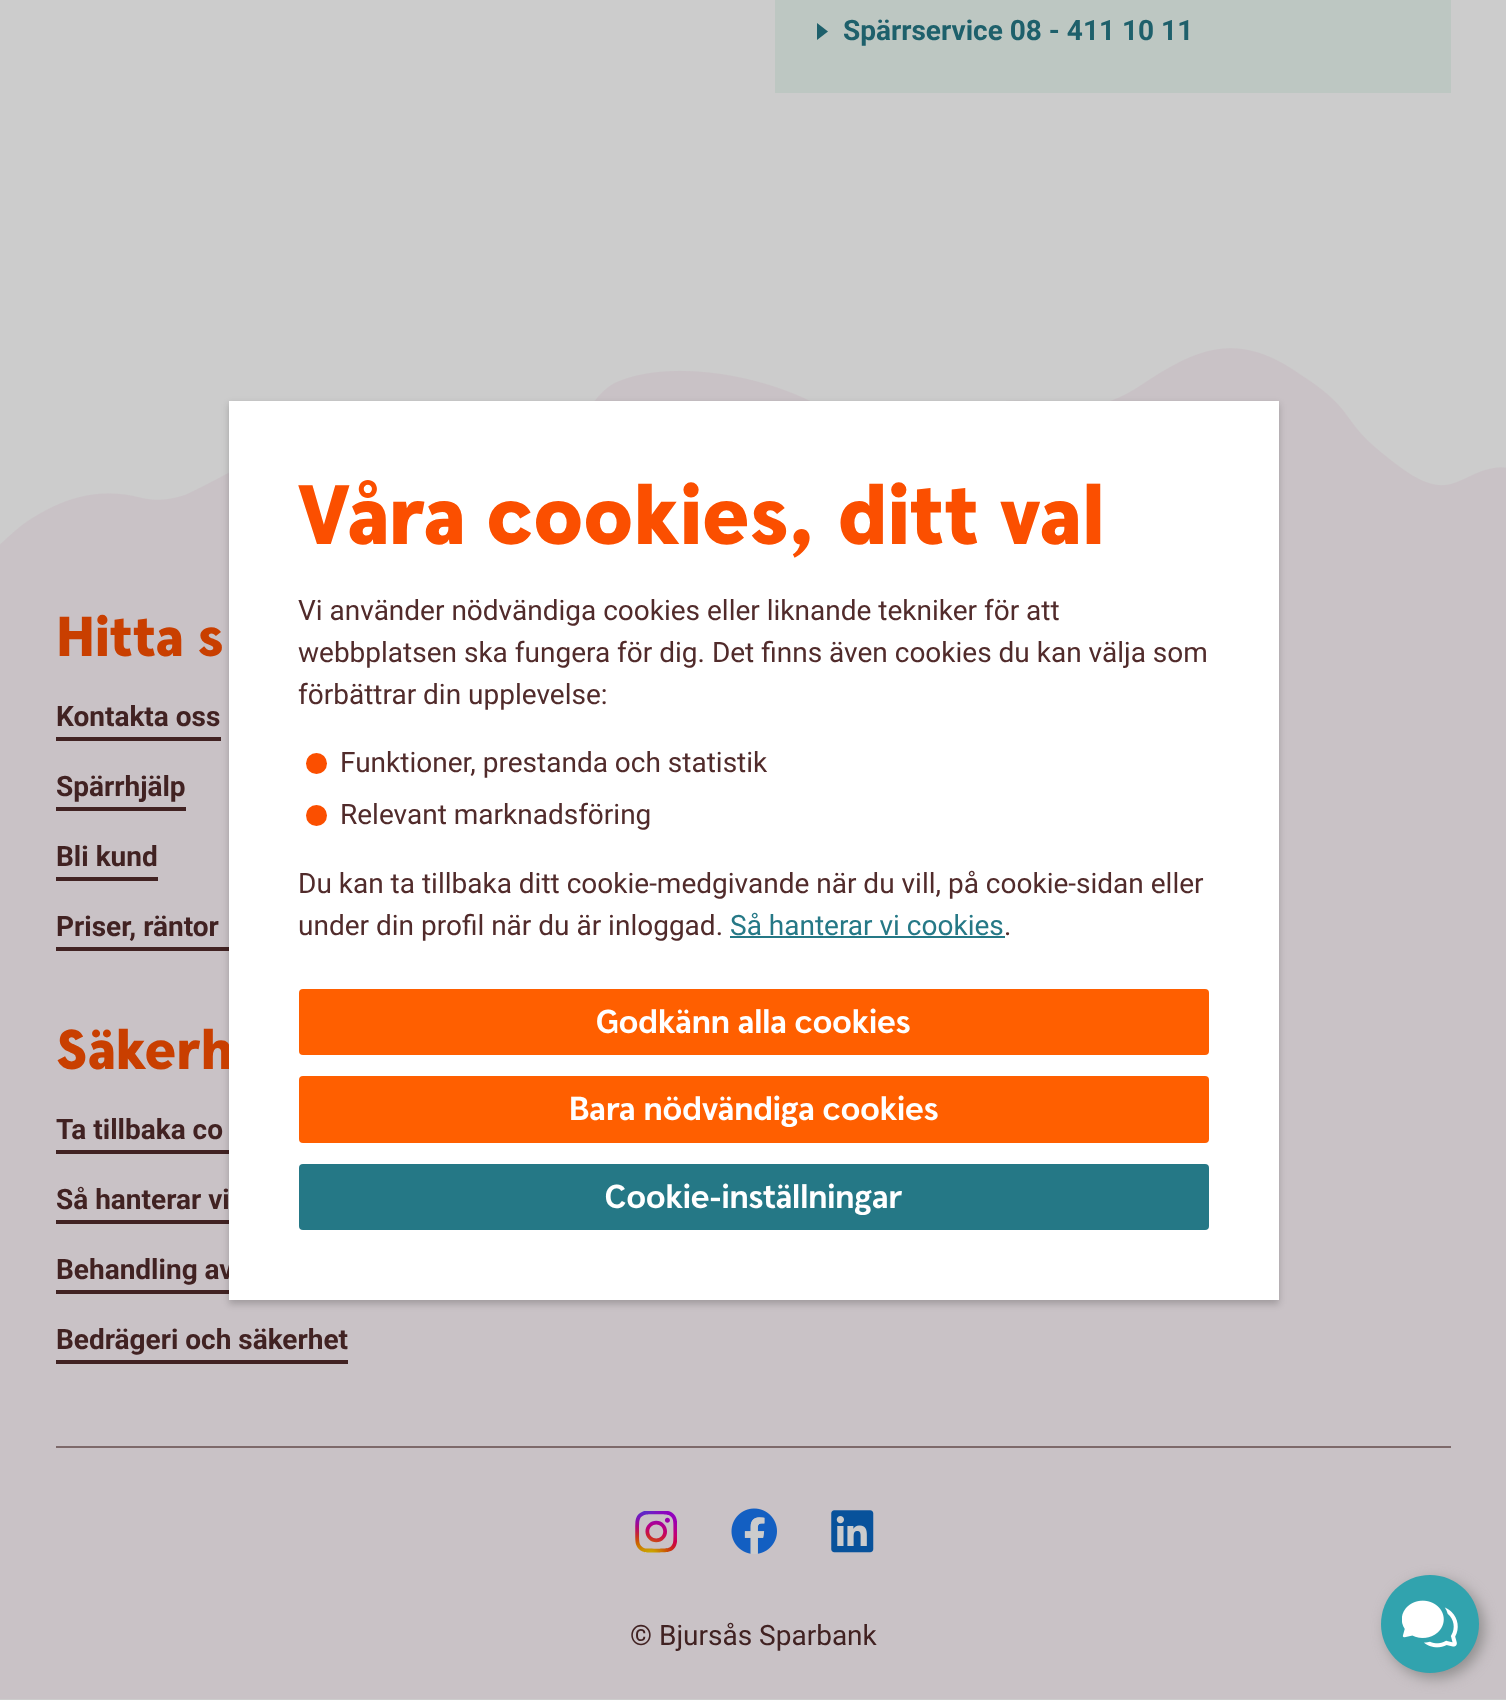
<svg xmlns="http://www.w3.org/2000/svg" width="1506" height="1700">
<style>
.a{font:bold 28px Roboto;fill:#1e606b}
.b{font:900 56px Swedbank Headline;fill:#c93f00}
.c{font:bold 28px Roboto;fill:#412222}
.d{font:bold 33.25px Swedbank Headline;fill:#fff}
.e{font:28px Roboto;fill:#257886}
.f{font:28px Roboto;fill:#512b2b}
.g{font:900 84px Swedbank Headline;fill:#fb4f00}
.h{font:28px Roboto;fill:#412222}
</style>
<rect width="100%" height="100%" fill="#ccc"/>
<path fill="#bdc7c2" d="M775 0h676v93H775z"/>
<path fill="#1e606b" d="M828 31.5l-11 8.5v-17z"/>
<image href="1.png" x="0" y="348" width="1506" height="202"/>
<path fill="#c9c2c6" d="M0 550h1506v1149H0z"/>
<path fill="#412222" d="M56 737h165v4H56z"/>
<path fill="#412222" d="M56 947h173v4H56z"/>
<path fill="#412222" d="M56 1150h173v4H56z"/>
<path fill="#412222" d="M56 1220h173v4H56z"/>
<path fill="#412222" d="M56 1290h173v4H56z"/>
<path fill="#00000033" filter="blur(3.5px)" d="M229 404h1050v900H229z"/>
<path fill="#412222" d="M56 807h130v4H56z"/>
<path fill="#412222" d="M56 877h102v4H56z"/>
<path fill="#412222" d="M56 1360h292v4H56z"/>
<path fill="#7d696a" d="M56 1446h1395v2H56z"/>
<image href="2.png" x="635" y="1511" width="42" height="42"/>
<image href="3.png" x="731" y="1508" width="46" height="46"/>
<image href="4.png" x="831" y="1510" width="43" height="43"/>
<rect fill="#908e8e" filter="blur(7px)" x="1386" y="1580" width="98" height="98" rx="49"/>
<circle fill="#31a3ae" cx="1430" cy="1624" r="49"/>
<image href="5.png" x="1402" y="1600" width="56" height="48"/>
<text class="a" x="843" y="40">Spärrservice 08 - 411 10 11</text>
<text class="b" x="56" y="656">Hitta s</text>
<text class="c" x="56" y="726">Kontakta oss</text>
<text class="c" x="56" y="796">Spärrhjälp</text>
<text class="c" x="56" y="866">Bli kund</text>
<text class="c" x="56" y="936">Priser, räntor</text>
<text class="b" x="56" y="1069">Säkerh</text>
<text class="c" x="56" y="1139">Ta tillbaka co</text>
<text class="c" x="56" y="1209">Så hanterar vi</text>
<text class="c" x="56" y="1279">Behandling av</text>
<path fill="#fff" d="M229 401h1050v899H229z"/>
<rect fill="#257886" x="299" y="1164" width="910" height="66" rx="4"/>
<text class="d" x="605" y="1208">Cookie-inställningar</text>
<rect fill="#ff5f00" x="299" y="1076" width="910" height="67" rx="4"/>
<text class="d" x="569" y="1120">Bara nödvändiga cookies</text>
<rect fill="#ff5f00" x="299" y="989" width="910" height="66" rx="4"/>
<text class="d" x="596" y="1033">Godkänn alla cookies</text>
<text class="e" x="730" y="935">Så hanterar vi cookies</text>
<path fill="#257886" d="M730 936h275v2H730z"/>
<text class="f" x="1004" y="935">.</text>
<text class="f" x="298" y="935">under din profil när du är inloggad.</text>
<text class="f" x="298" y="893">Du kan ta tillbaka ditt cookie-medgivande när du vill, på cookie-sidan eller</text>
<circle fill="#fb4f00" cx="316.5" cy="815.5" r="10.5"/>
<text class="f" x="340" y="824">Relevant marknadsföring</text>
<circle fill="#fb4f00" cx="316.5" cy="763.5" r="10.5"/>
<text class="f" x="340" y="772">Funktioner, prestanda och statistik</text>
<text class="f" x="298" y="704">förbättrar din upplevelse:</text>
<text class="f" x="298" y="662">webbplatsen ska fungera för dig. Det finns även cookies du kan välja som</text>
<text class="f" x="298" y="620">Vi använder nödvändiga cookies eller liknande tekniker för att</text>
<text class="g" x="298" y="544">Våra cookies, ditt val</text>
<text class="c" x="56" y="1349">Bedrägeri och säkerhet</text>
<text class="h" x="630" y="1645">© Bjursås Sparbank</text>
</svg>
